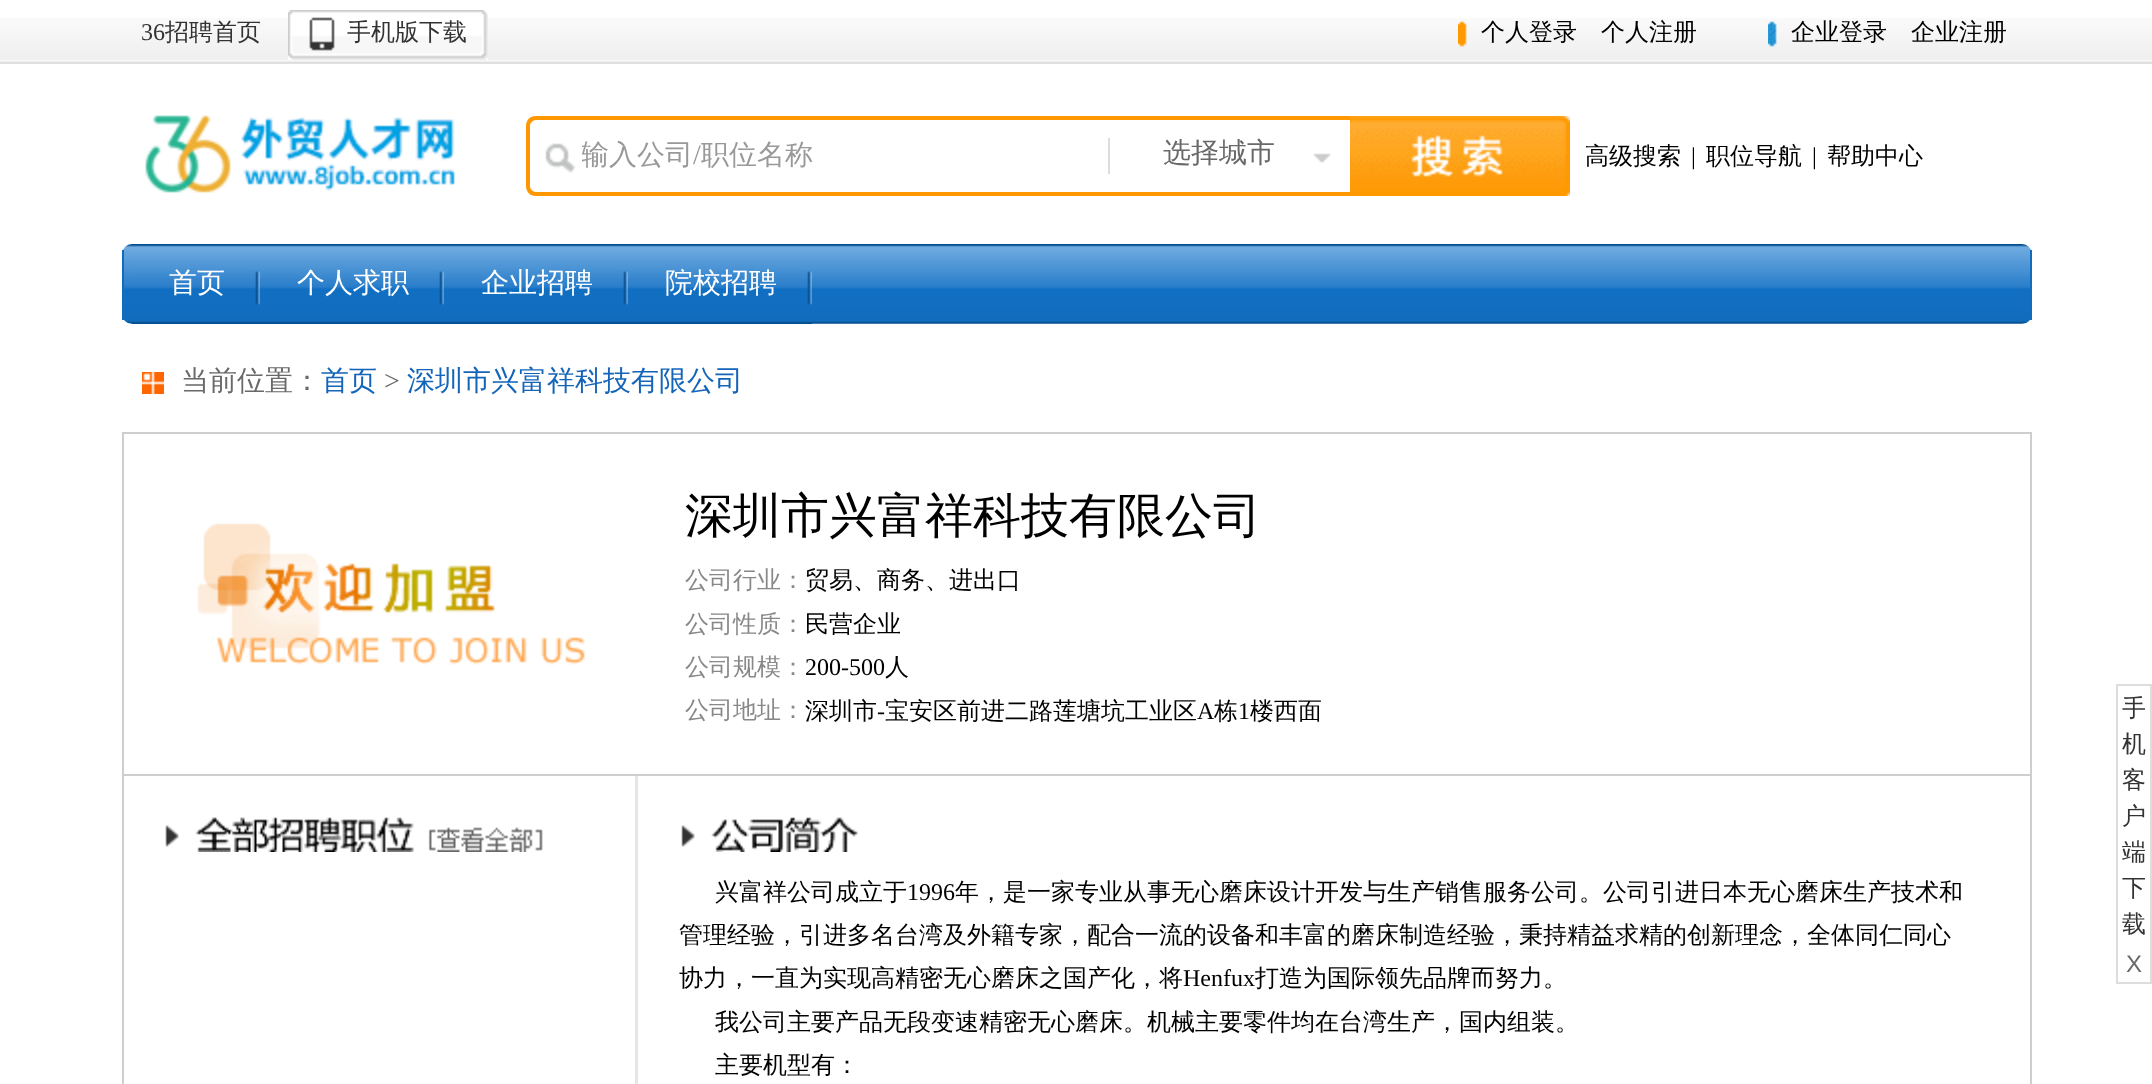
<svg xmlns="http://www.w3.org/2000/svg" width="2152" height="1084">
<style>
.a{font:24px Liberation Serif;fill:#333}
.b{font:500 24px WenQuanYi Zen Hei;fill:#333}
.c{font:500 24px WenQuanYi Zen Hei;fill:#000}
.d{font:500 28px WenQuanYi Zen Hei;fill:#999}
.e{font:28px Liberation Serif;fill:#999}
.f{font:500 28px WenQuanYi Zen Hei;fill:#696969}
.g{font:24px Liberation Serif;fill:#000}
.h{font:500 28px WenQuanYi Zen Hei;fill:#fff}
.i{font:500 28px WenQuanYi Zen Hei;fill:#1464b9}
.j{font:28px Liberation Serif;fill:#696969}
.k{font:500 48px WenQuanYi Zen Hei;fill:#000}
.l{font:500 24px WenQuanYi Zen Hei;fill:#888}
.m{font:24px Liberation Sans;fill:#696969}
</style>
<defs>
<clipPath id="clip1"><path d="M582 120h520v72H582z"/></clipPath>
</defs>
<rect width="100%" height="100%" fill="#fff"/>
<image href="1.png" x="0" y="18" width="2152" height="46"/>
<image href="2.png" x="288" y="10" width="200" height="50"/>
<image href="3.png" x="1458" y="21" width="9" height="26"/>
<image href="4.png" x="1768" y="21" width="9" height="26"/>
<image href="5.png" x="145" y="115" width="310" height="78"/>
<image href="6.png" x="545" y="143" width="31" height="30"/>
<path fill="#ff9800" fill-rule="evenodd" d="M536 116h814v80h-814c-6 0-10-4-10-10v-60c0-6 4-10 10-10zm0 4h814v72h-814c-3 0-6-3-6-6v-60c0-3 3-6 6-6z"/>
<image href="7.png" x="1313" y="153" width="18" height="10"/>
<path fill="#ddd" d="M1108 138h2v36H1108z"/>
<path fill="#efefef" d="M1350 116h220v80H1350z"/>
<image href="8.png" x="1350" y="116" width="220" height="80"/>
<image href="9.png" x="123" y="244" width="1908" height="80"/>
<path fill="#116cbb" d="M2030 250h2v70H2030z"/>
<path fill="#116cbb" d="M122 250h2v70H122z"/>
<image href="10.png" x="132" y="271" width="128" height="53"/>
<image href="11.png" x="260" y="271" width="184" height="53"/>
<image href="11.png" x="444" y="271" width="184" height="53"/>
<image href="11.png" x="628" y="271" width="184" height="53"/>
<image href="12.png" x="142" y="372" width="22" height="22"/>
<path fill="#cecece" d="M122 432h1910v2H122z"/>
<path fill="#cecece" d="M2030 432h2v342H2030z"/>
<path fill="#cecece" d="M122 432h2v342H122z"/>
<image href="13.png" x="197" y="523" width="388" height="142"/>
<path fill="#e6e6e6" d="M635 774h3v310H635z"/>
<path fill="none" stroke="#cecece" stroke-width="2" d="M123 775h1908v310H123z"/>
<image href="14.png" x="165" y="817" width="378" height="35"/>
<image href="15.png" x="681" y="817" width="177" height="35"/>
<path fill="none" stroke="#ddd" stroke-width="2" d="M2117 685h34v298H2117z"/>
<text class="a" x="141" y="40">36</text>
<text class="b" x="165" y="40">招聘首页</text>
<text class="b" x="347" y="40">手机版下载</text>
<text class="c" x="1481" y="40">个人登录</text>
<text class="c" x="1601" y="40">个人注册</text>
<text class="c" x="1791" y="40">企业登录</text>
<text class="c" x="1911" y="40">企业注册</text>
<g clip-path="url(#clip1)">
<text class="d" x="581" y="164">输入公司</text>
</g>
<text class="e" x="693" y="164">/</text>
<text class="d" x="701" y="164">职位名称</text>
<text class="f" x="1163" y="162">选择城市</text>
<text class="c" x="1585" y="164">高级搜索</text>
<text class="g" x="1691" y="164">|</text>
<text class="c" x="1706" y="164">职位导航</text>
<text class="g" x="1812" y="164">|</text>
<text class="c" x="1827" y="164">帮助中心</text>
<text class="h" x="169" y="292">首页</text>
<text class="h" x="297" y="292">个人求职</text>
<text class="h" x="481" y="292">企业招聘</text>
<text class="h" x="665" y="292">院校招聘</text>
<text class="f" x="181" y="390">当前位置：</text>
<text class="i" x="321" y="390">首页</text>
<text class="j" x="384" y="390">&gt;</text>
<text class="i" x="407" y="390">深圳市兴富祥科技有限公司</text>
<text class="k" x="685" y="532">深圳市兴富祥科技有限公司</text>
<text class="l" x="685" y="588">公司行业：</text>
<text class="c" x="805" y="588">贸易、商务、进出口</text>
<text class="l" x="685" y="632">公司性质：</text>
<text class="c" x="805" y="632">民营企业</text>
<text class="l" x="685" y="675">公司规模：</text>
<text class="g" x="805" y="675">200-500</text>
<text class="c" x="885" y="675">人</text>
<text class="l" x="685" y="718">公司地址：</text>
<text class="c" x="805" y="719">深圳市</text>
<text class="g" x="877" y="719">-</text>
<text class="c" x="885" y="719">宝安区前进二路莲塘坑工业区</text>
<text class="g" x="1197" y="719">A</text>
<text class="c" x="1214" y="719">栋</text>
<text class="g" x="1238" y="719">1</text>
<text class="c" x="1250" y="719">楼西面</text>
<text class="c" x="715" y="900">兴富祥公司成立于</text>
<text class="g" x="907" y="900">1996</text>
<text class="c" x="955" y="900">年，是一家专业从事无心磨床设计开发与生产销售服务公司。公司引进日本无心磨床生产技术和</text>
<text class="c" x="679" y="943">管理经验，引进多名台湾及外籍专家，配合一流的设备和丰富的磨床制造经验，秉持精益求精的创新理念，全体同仁同心</text>
<text class="c" x="679" y="986">协力，一直为实现高精密无心磨床之国产化，将</text>
<text class="g" x="1183" y="986">Henfux</text>
<text class="c" x="1255" y="986">打造为国际领先品牌而努力。</text>
<text class="c" x="715" y="1030">我公司主要产品无段变速精密无心磨床。机械主要零件均在台湾生产，国内组装。</text>
<text class="c" x="715" y="1073">主要机型有：</text>
<text class="b" x="2122" y="716">手</text>
<text class="b" x="2122" y="752">机</text>
<text class="b" x="2122" y="788">客</text>
<text class="b" x="2122" y="824">户</text>
<text class="b" x="2122" y="860">端</text>
<text class="b" x="2122" y="896">下</text>
<text class="b" x="2122" y="932">载</text>
<text class="m" x="2126" y="972">X</text>
</svg>
